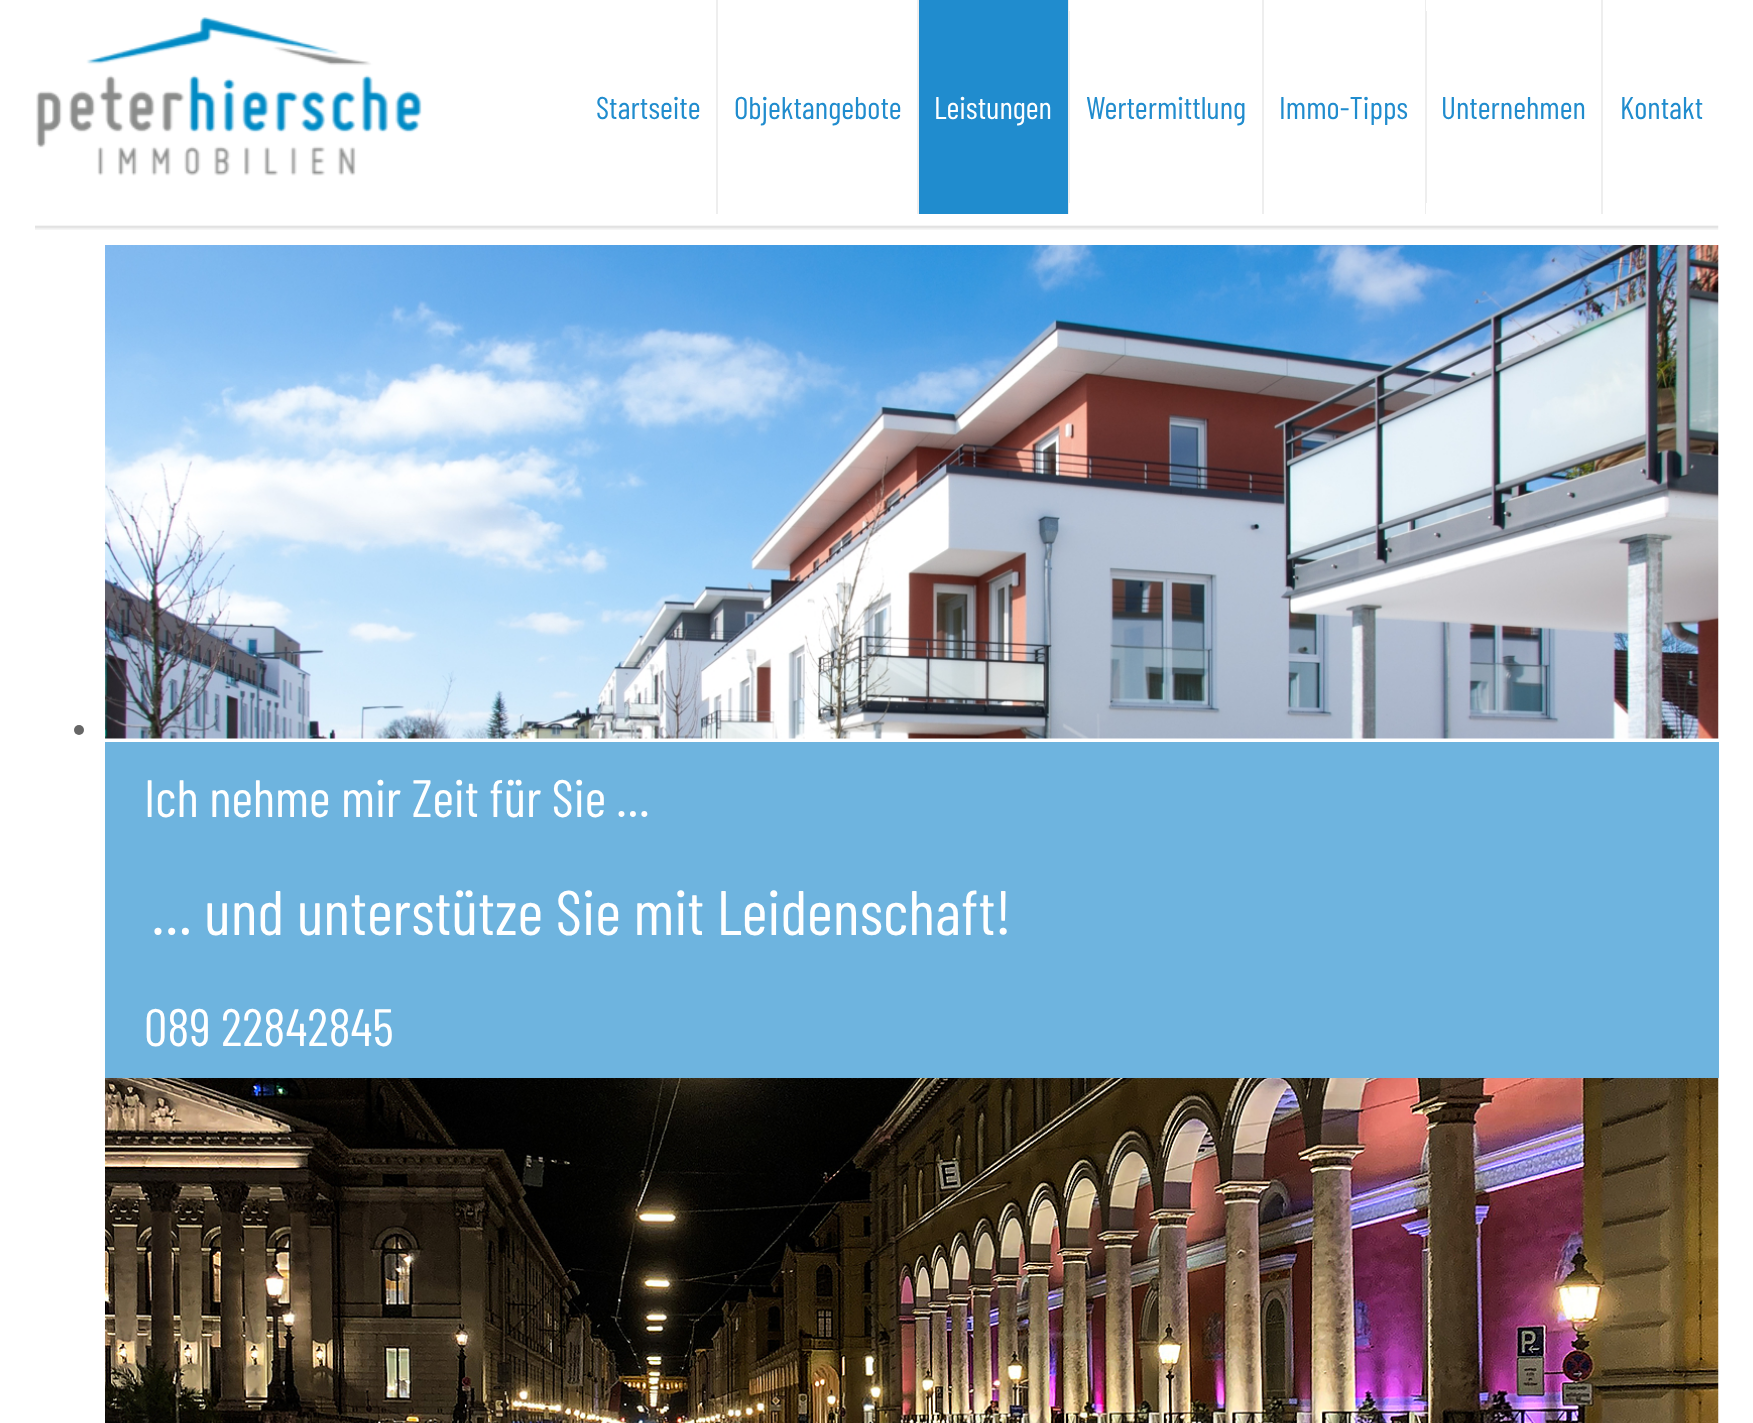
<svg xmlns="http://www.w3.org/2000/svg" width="1753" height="1423">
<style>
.a{font:31.5px Barlow Condensed;fill:#208cce}
.b{font:31.5px Barlow Condensed;fill:#fff}
.c{font:52.5px Barlow Condensed;fill:#fff}
.d{font:63px Barlow Condensed;fill:#fff}
</style>
<rect width="100%" height="100%" fill="#fff"/>
<image href="1.png" x="36" y="17" width="386" height="159"/>
<path fill="#eee" d="M716 0h2v214H716z"/>
<path fill="#eee" d="M917 0h2v214H917z"/>
<path fill="#208cce" d="M919 0h149v214H919z"/>
<path fill="#eee" d="M1068 0h2v214H1068z"/>
<path fill="#fff" d="M1069 0h1v11H1069z"/>
<path fill="#fff" d="M1069 203h1v11H1069z"/>
<path fill="#eee" d="M1262 0h2v214H1262z"/>
<path fill="#eee" d="M1425 0h2v214H1425z"/>
<path fill="#fff" d="M1426 0h1v11H1426z"/>
<path fill="#fff" d="M1426 203h1v11H1426z"/>
<path fill="#eee" d="M1601 0h2v214H1601z"/>
<image href="2.png" x="35" y="225" width="1684" height="5"/>
<circle fill="#666" cx="79" cy="730" r="5"/>
<image href="3.png" x="105" y="245" width="1614" height="494"/>
<path fill="#6eb4df" d="M105 742h1614v336H105z"/>
<image href="4.png" x="105" y="1078" width="1614" height="345"/>
<text class="a" x="596" y="119">Startseite</text>
<text class="a" x="734" y="119">Objektangebote</text>
<text class="b" x="934" y="119">Leistungen</text>
<text class="a" x="1086" y="119">Wertermittlung</text>
<text class="a" x="1279" y="119">Immo-Tipps</text>
<text class="a" x="1441" y="119">Unternehmen</text>
<text class="a" x="1620" y="119">Kontakt</text>
<text class="c" x="144" y="817">Ich nehme mir Zeit für Sie …</text>
<text class="d" x="152" y="935">… und unterstütze Sie mit Leidenschaft!</text>
<text class="c" x="144" y="1046">089 22842845</text>
</svg>
